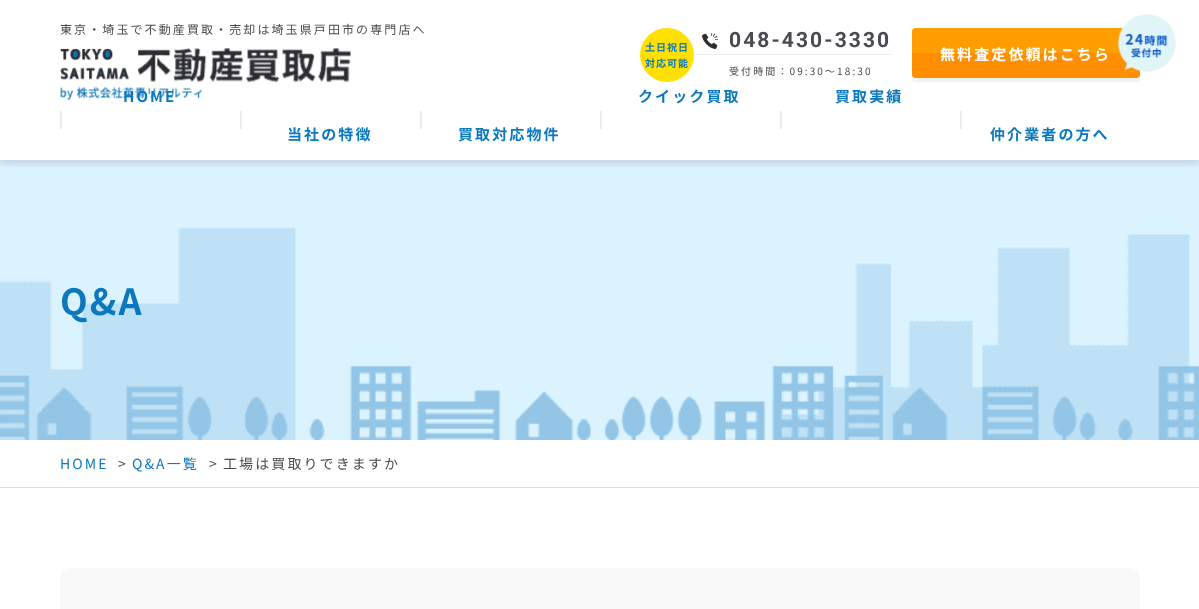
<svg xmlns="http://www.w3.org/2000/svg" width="1199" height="609">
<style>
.a{font:12px Noto Sans JP;letter-spacing:2.1px;fill:#4a4b50}
.b{font:bold 21px Roboto;letter-spacing:2.1px;fill:#4a4b50}
.c{font:bold 10px Noto Sans JP;letter-spacing:1px;fill:#0b78be}
.d{font:10px Noto Sans JP;letter-spacing:2.1px;fill:#4a4b50}
.e{font:bold 15px Noto Sans JP;letter-spacing:2.1px;fill:#fff}
.f{font:bold 15px Noto Sans JP;letter-spacing:2.1px;fill:#0b78be}
.g{font:bold 36px Noto Sans JP;letter-spacing:2.1px;fill:#0b78be}
.h{font:14px Noto Sans JP;letter-spacing:2.1px;fill:#0b78be}
.i{font:14px Noto Sans JP;letter-spacing:2.1px;fill:#4a4b50}
</style>
<defs>
<clipPath id="clip1"><path d="M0 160h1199v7H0z"/></clipPath>
</defs>
<rect width="100%" height="100%" fill="#fff"/>
<image href="4.png" x="0" y="160" width="1199" height="280"/>
<g clip-path="url(#clip1)">
<path fill="#04000026" filter="blur(4px)" d="M0 3h1199v160H0z"/>
</g>
<image href="1.png" x="60" y="48" width="291" height="52"/>
<path fill="#ededed" d="M694 54h197v1H694z"/>
<image href="2.png" x="702" y="33" width="16" height="16"/>
<circle fill="#ffe000" cx="667" cy="55" r="27"/>
<path fill="#f2f2f2" d="M912 75v4c0 2 1 3 3 3h222c2 0 3-1 3-3v-4c0 2-1 3-3 3h-222c-2 0-3-1-3-3z"/>
<path fill="#ff9e00" d="M915 28h222c1.5 0 3 1.5 3 3v22h-228v-22c0-1.5 1.5-3 3-3z"/>
<path fill="#ff8e00" d="M912 53h228v22c0 1.5-1.5 3-3 3h-222c-1.5 0-3-1.5-3-3z"/>
<image href="3.png" x="1117" y="14" width="59" height="58"/>
<path fill="#ebebeb" d="M60 111h2v18H60z"/>
<path fill="#ebebeb" d="M600 111h2v18H600z"/>
<path fill="#ebebeb" d="M780 111h2v18H780z"/>
<path fill="#ebebeb" d="M240 111h2v18H240z"/>
<path fill="#ebebeb" d="M420 111h2v18H420z"/>
<path fill="#ebebeb" d="M960 111h2v18H960z"/>
<path fill="#ddd" d="M0 487h1199v1H0z"/>
<rect fill="#f9f9f9" x="60" y="568" width="1080" height="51" rx="10"/>
<text class="a" x="60" y="34">東京・埼玉で不動産買取・売却は埼玉県戸田市の専門店へ</text>
<text class="b" x="729" y="47">048-430-3330</text>
<text class="c" x="645" y="51">土日祝日</text>
<text class="c" x="645" y="67">対応可能</text>
<text class="d" x="729" y="75">受付時間：09:30～18:30</text>
<text class="e" x="940" y="60">無料査定依頼はこちら</text>
<text class="f" x="123" y="102">HOME</text>
<text class="f" x="638" y="102">クイック買取</text>
<text class="f" x="835" y="102">買取実績</text>
<text class="f" x="287" y="140">当社の特徴</text>
<text class="f" x="458" y="140">買取対応物件</text>
<text class="f" x="990" y="140">仲介業者の方へ</text>
<text class="g" x="60" y="315">Q&amp;A</text>
<text class="h" x="60" y="469">HOME</text>
<text class="i" x="118" y="469">&gt;</text>
<text class="h" x="132" y="469">Q&amp;A一覧</text>
<text class="i" x="209" y="469">&gt;</text>
<text class="i" x="223" y="469">工場は買取りできますか</text>
</svg>
